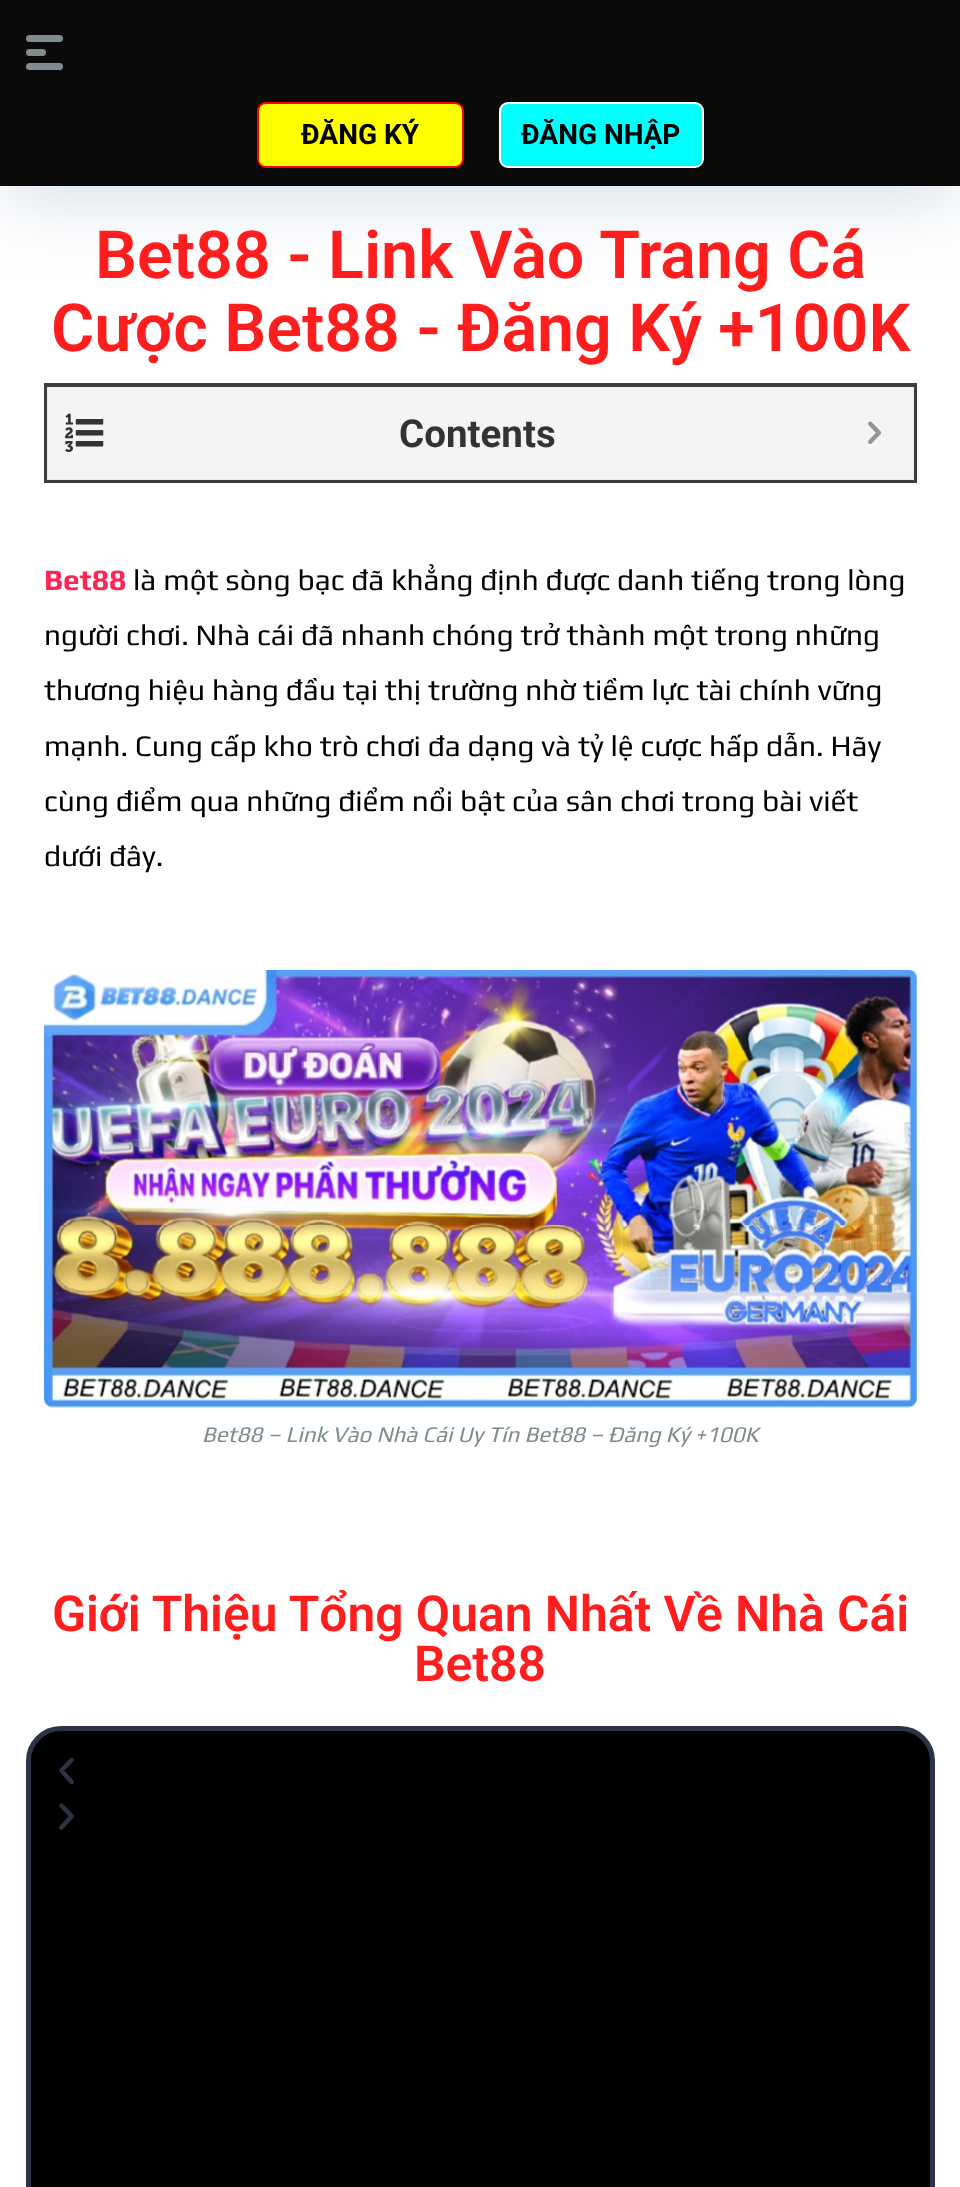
<svg xmlns="http://www.w3.org/2000/svg" width="960" height="2187">
<style>
.a{font:bold 28px Roboto;fill:#000}
.b{font:600 66.3px Roboto;fill:#ff1d1d}
.c{font:bold 38.5px Roboto;fill:#333}
.d{font:bold 29.75px Play;fill:#ff2453}
.e{font:29.75px Play;fill:#000}
.f{font:italic 22.3px Play;fill:#7f8c8d}
.g{font:600 49.75px Roboto;fill:#ff1d1d}
</style>
<rect width="100%" height="100%" fill="#fff"/>
<path fill="#6d8dad40" filter="blur(35px)" d="M0 18h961v185H0z"/>
<path fill="#0a0a0a" d="M0 0h960v186H0z"/>
<rect fill="#7f8c8d" x="26" y="35" width="37" height="7" rx="3.5"/>
<rect fill="#7f8c8d" x="26" y="49" width="20" height="7" rx="3.5"/>
<rect fill="#7f8c8d" x="26" y="63" width="37" height="7" rx="3.5"/>
<rect fill="#ff0" stroke="#f00" stroke-width="2" x="258" y="103" width="205" height="64" rx="8"/>
<rect fill="#0ff" stroke="#fff" stroke-width="2" x="500" y="103" width="203" height="64" rx="8"/>
<path fill="none" stroke="#3d3d3d" stroke-width="4" d="M46 385h869v96H46z"/>
<path fill="#f3f3f3f2" d="M47 387h867v93H47z"/>
<image href="1.png" x="65" y="413" width="39" height="39"/>
<image href="2.png" x="868" y="421" width="13" height="23"/>
<image href="3.png" x="44" y="970" width="874" height="438"/>
<rect fill="#000" stroke="#2e3246" stroke-width="5" x="28.5" y="1728.5" width="904" height="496" rx="32.5"/>
<image href="4.png" x="59" y="1757" width="15" height="28"/>
<image href="5.png" x="59" y="1803" width="15" height="27"/>
<text class="a" x="301" y="144">ĐĂNG KÝ</text>
<text class="a" x="521" y="144">ĐĂNG NHẬP</text>
<text class="b" x="95" y="278">Bet88 - Link Vào Trang Cá</text>
<text class="b" x="51" y="351">Cược Bet88 - Đăng Ký +100K</text>
<text class="c" x="399" y="447">Contents</text>
<text class="d" x="44" y="590">Bet88</text>
<text class="e" x="133" y="590">là một sòng bạc đã khẳng định được danh tiếng trong lòng</text>
<text class="e" x="44" y="645">người chơi. Nhà cái đã nhanh chóng trở thành một trong những</text>
<text class="e" x="44" y="700">thương hiệu hàng đầu tại thị trường nhờ tiềm lực tài chính vững</text>
<text class="e" x="44" y="756">mạnh. Cung cấp kho trò chơi đa dạng và tỷ lệ cược hấp dẫn. Hãy</text>
<text class="e" x="44" y="811">cùng điểm qua những điểm nổi bật của sân chơi trong bài viết</text>
<text class="e" x="44" y="866">dưới đây.</text>
<text class="f" x="202" y="1442">Bet88 – Link Vào Nhà Cái Uy Tín Bet88 – Đăng Ký +100K</text>
<text class="g" x="52" y="1631">Giới Thiệu Tổng Quan Nhất Về Nhà Cái</text>
<text class="g" x="414" y="1681">Bet88</text>
</svg>
